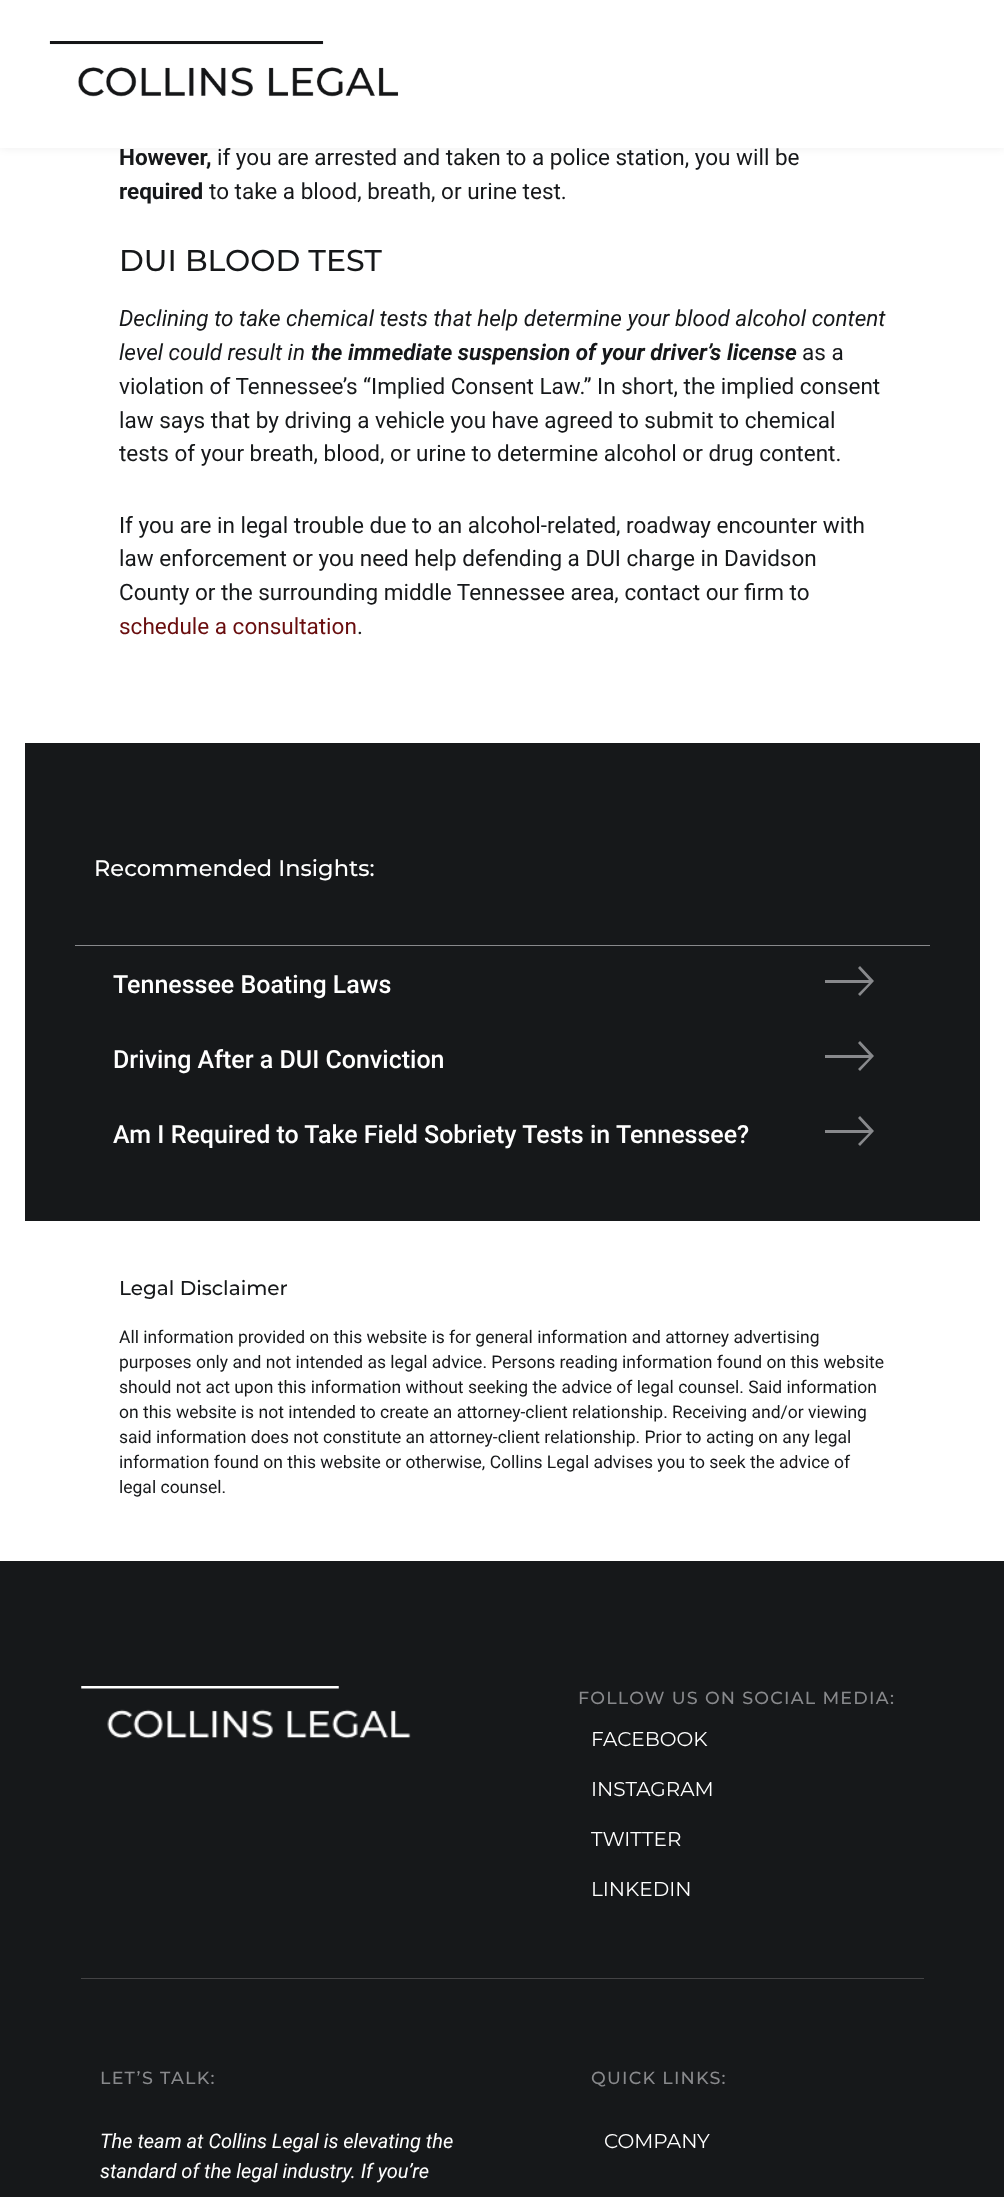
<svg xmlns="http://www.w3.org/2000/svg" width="1004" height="2197">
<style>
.a{font:bold 22.5px Roboto;fill:#16181a}
.b{font:22.5px Roboto;fill:#16181a}
.c{font:500 30px Montserrat;fill:#16181a}
.d{font:italic 22.5px Roboto;fill:#16181a}
.e{font:italic bold 22.5px Roboto;fill:#16181a}
.f{font:22.5px Roboto;fill:#690d0e}
.g{font:500 22.5px Montserrat;fill:#fff}
.h{font:500 25px Roboto;fill:#fff}
.i{font:500 20px Montserrat;fill:#16181a}
.j{font:17.5px Roboto;fill:#16181a}
.k{font:500 17.5px Montserrat;letter-spacing:1.25px;fill:#88898c}
.l{font:20px Montserrat;fill:#fff}
.m{font:italic 20px Roboto;fill:#fff}
</style>
<rect width="100%" height="100%" fill="#fff"/>
<path fill="#00000012" filter="blur(4.5px)" d="M0 0h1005v148H0z"/>
<path fill="#16181a" d="M25 743h955v478H25z"/>
<path fill="#88898c" d="M75 945h855v1H75z"/>
<path fill="#88898c" fill-rule="evenodd" d="M869 980l-11-12l2-2l14 15l-14 15l-2-2l11-11h-44v-3z"/>
<path fill="#88898c" fill-rule="evenodd" d="M869 1055l-11-12l2-2l14 15l-14 15l-2-2l11-11h-44v-3z"/>
<path fill="#88898c" fill-rule="evenodd" d="M869 1130l-11-12l2-2l14 15l-14 15l-2-2l11-11h-44v-3z"/>
<path fill="#16181a" d="M0 1561h1004v636H0z"/>
<path fill="#434345" d="M81 1978h843v1H81z"/>
<image href="2.png" x="81" y="1686" width="330" height="53"/>
<text class="a" x="119" y="165">However,</text>
<text class="b" x="217" y="165">if you are arrested and taken to a police station, you will be</text>
<path fill="#fff" d="M0 0h1004v148H0z"/>
<image href="1.png" x="49" y="41" width="350" height="56"/>
<text class="a" x="119" y="199">required</text>
<text class="b" x="209" y="199">to take a blood, breath, or urine test.</text>
<text class="c" x="119" y="271">DUI BLOOD TEST</text>
<text class="d" x="119" y="326">Declining to take chemical tests that help determine your blood alcohol content</text>
<text class="d" x="119" y="360">level could result in</text>
<text class="e" x="311" y="360">the immediate suspension of your driver’s license</text>
<text class="b" x="802" y="360">as a</text>
<text class="b" x="119" y="394">violation of Tennessee’s “Implied Consent Law.” In short, the implied consent</text>
<text class="b" x="119" y="428">law says that by driving a vehicle you have agreed to submit to chemical</text>
<text class="b" x="119" y="461">tests of your breath, blood, or urine to determine alcohol or drug content.</text>
<text class="b" x="119" y="533">If you are in legal trouble due to an alcohol-related, roadway encounter with</text>
<text class="b" x="119" y="566">law enforcement or you need help defending a DUI charge in Davidson</text>
<text class="b" x="119" y="600">County or the surrounding middle Tennessee area, contact our firm to</text>
<text class="f" x="119" y="634">schedule a consultation</text>
<text class="b" x="357" y="634">.</text>
<text class="g" x="94" y="876">Recommended Insights:</text>
<text class="h" x="113" y="993">Tennessee Boating Laws</text>
<text class="h" x="113" y="1068">Driving After a DUI Conviction</text>
<text class="h" x="113" y="1143">Am I Required to Take Field Sobriety Tests in Tennessee?</text>
<text class="i" x="119" y="1295">Legal Disclaimer</text>
<text class="j" x="119" y="1343">All information provided on this website is for general information and attorney advertising</text>
<text class="j" x="119" y="1368">purposes only and not intended as legal advice. Persons reading information found on this website</text>
<text class="j" x="119" y="1393">should not act upon this information without seeking the advice of legal counsel. Said information</text>
<text class="j" x="119" y="1418">on this website is not intended to create an attorney-client relationship. Receiving and/or viewing</text>
<text class="j" x="119" y="1443">said information does not constitute an attorney-client relationship. Prior to acting on any legal</text>
<text class="j" x="119" y="1468">information found on this website or otherwise, Collins Legal advises you to seek the advice of</text>
<text class="j" x="119" y="1493">legal counsel.</text>
<text class="k" x="578" y="1704">FOLLOW US ON SOCIAL MEDIA:</text>
<text class="l" x="591" y="1746">FACEBOOK</text>
<text class="l" x="591" y="1796">INSTAGRAM</text>
<text class="l" x="591" y="1846">TWITTER</text>
<text class="l" x="591" y="1896">LINKEDIN</text>
<text class="k" x="100" y="2084">LET’S TALK:</text>
<text class="m" x="100" y="2148">The team at Collins Legal is elevating the</text>
<text class="m" x="100" y="2178">standard of the legal industry. If you’re</text>
<text class="k" x="591" y="2084">QUICK LINKS:</text>
<text class="l" x="604" y="2148">COMPANY</text>
</svg>
